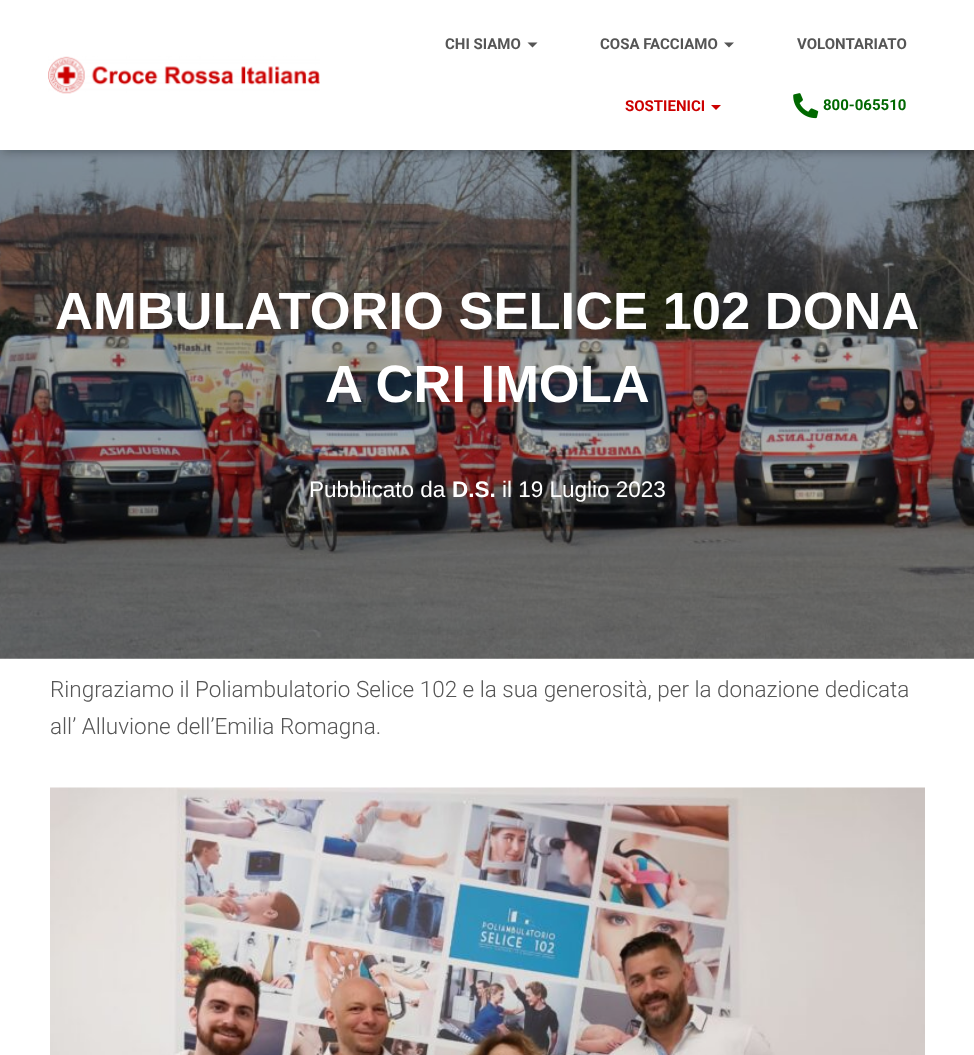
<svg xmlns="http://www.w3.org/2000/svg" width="974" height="1055">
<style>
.a{font:bold 15px Roboto;fill:#555}
.b{font:bold 15px Roboto;fill:#c00}
.c{font:bold 15px Roboto;fill:#006800}
.d{font:bold 52.5px Liberation Sans;fill:#fff}
.e{font:22.5px Liberation Sans;fill:#fff}
.f{font:bold 22.5px Liberation Sans;fill:#fff}
.g{font:300 22.5px Roboto;fill:#555}
</style>
<rect width="100%" height="100%" fill="#fff"/>
<image href="3.png" x="0" y="150" width="974" height="509"/>
<path fill="#0000001a" filter="blur(3px)" d="M3 8h970v145H3z"/>
<path fill="#0000001f" filter="blur(6px)" d="M0 1h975v150H0z"/>
<path fill="#0000006b" filter="blur(6px)" d="M8 9h960v135H8z"/>
<path fill="#fff" d="M0 0h974v150H0z"/>
<image href="1.png" x="48" y="56" width="272" height="38"/>
<path fill="#555" d="M527.5 42.5h10l-5 5z"/>
<path fill="#555" d="M724 42.5h10l-5 5z"/>
<path fill="#c00" d="M711 105h10l-5 5z"/>
<image href="2.png" x="793" y="93" width="26" height="26"/>
<image href="4.png" x="50" y="787" width="875" height="268"/>
<text class="a" x="445" y="49">CHI SIAMO</text>
<text class="a" x="600" y="49">COSA FACCIAMO</text>
<text class="a" x="797" y="49">VOLONTARIATO</text>
<text class="b" x="625" y="111">SOSTIENICI</text>
<text class="c" x="823" y="110">800-065510</text>
<text class="d" x="55" y="329">AMBULATORIO SELICE 102 DONA</text>
<text class="d" x="325" y="402">A CRI IMOLA</text>
<text class="e" x="309" y="497">Pubblicato da</text>
<text class="f" x="452" y="497">D.S.</text>
<text class="e" x="502" y="497">il 19 Luglio 2023</text>
<text class="g" x="50" y="697">Ringraziamo il Poliambulatorio Selice 102 e la sua generosità, per la donazione dedicata</text>
<text class="g" x="50" y="734">all’ Alluvione dell’Emilia Romagna.</text>
</svg>
